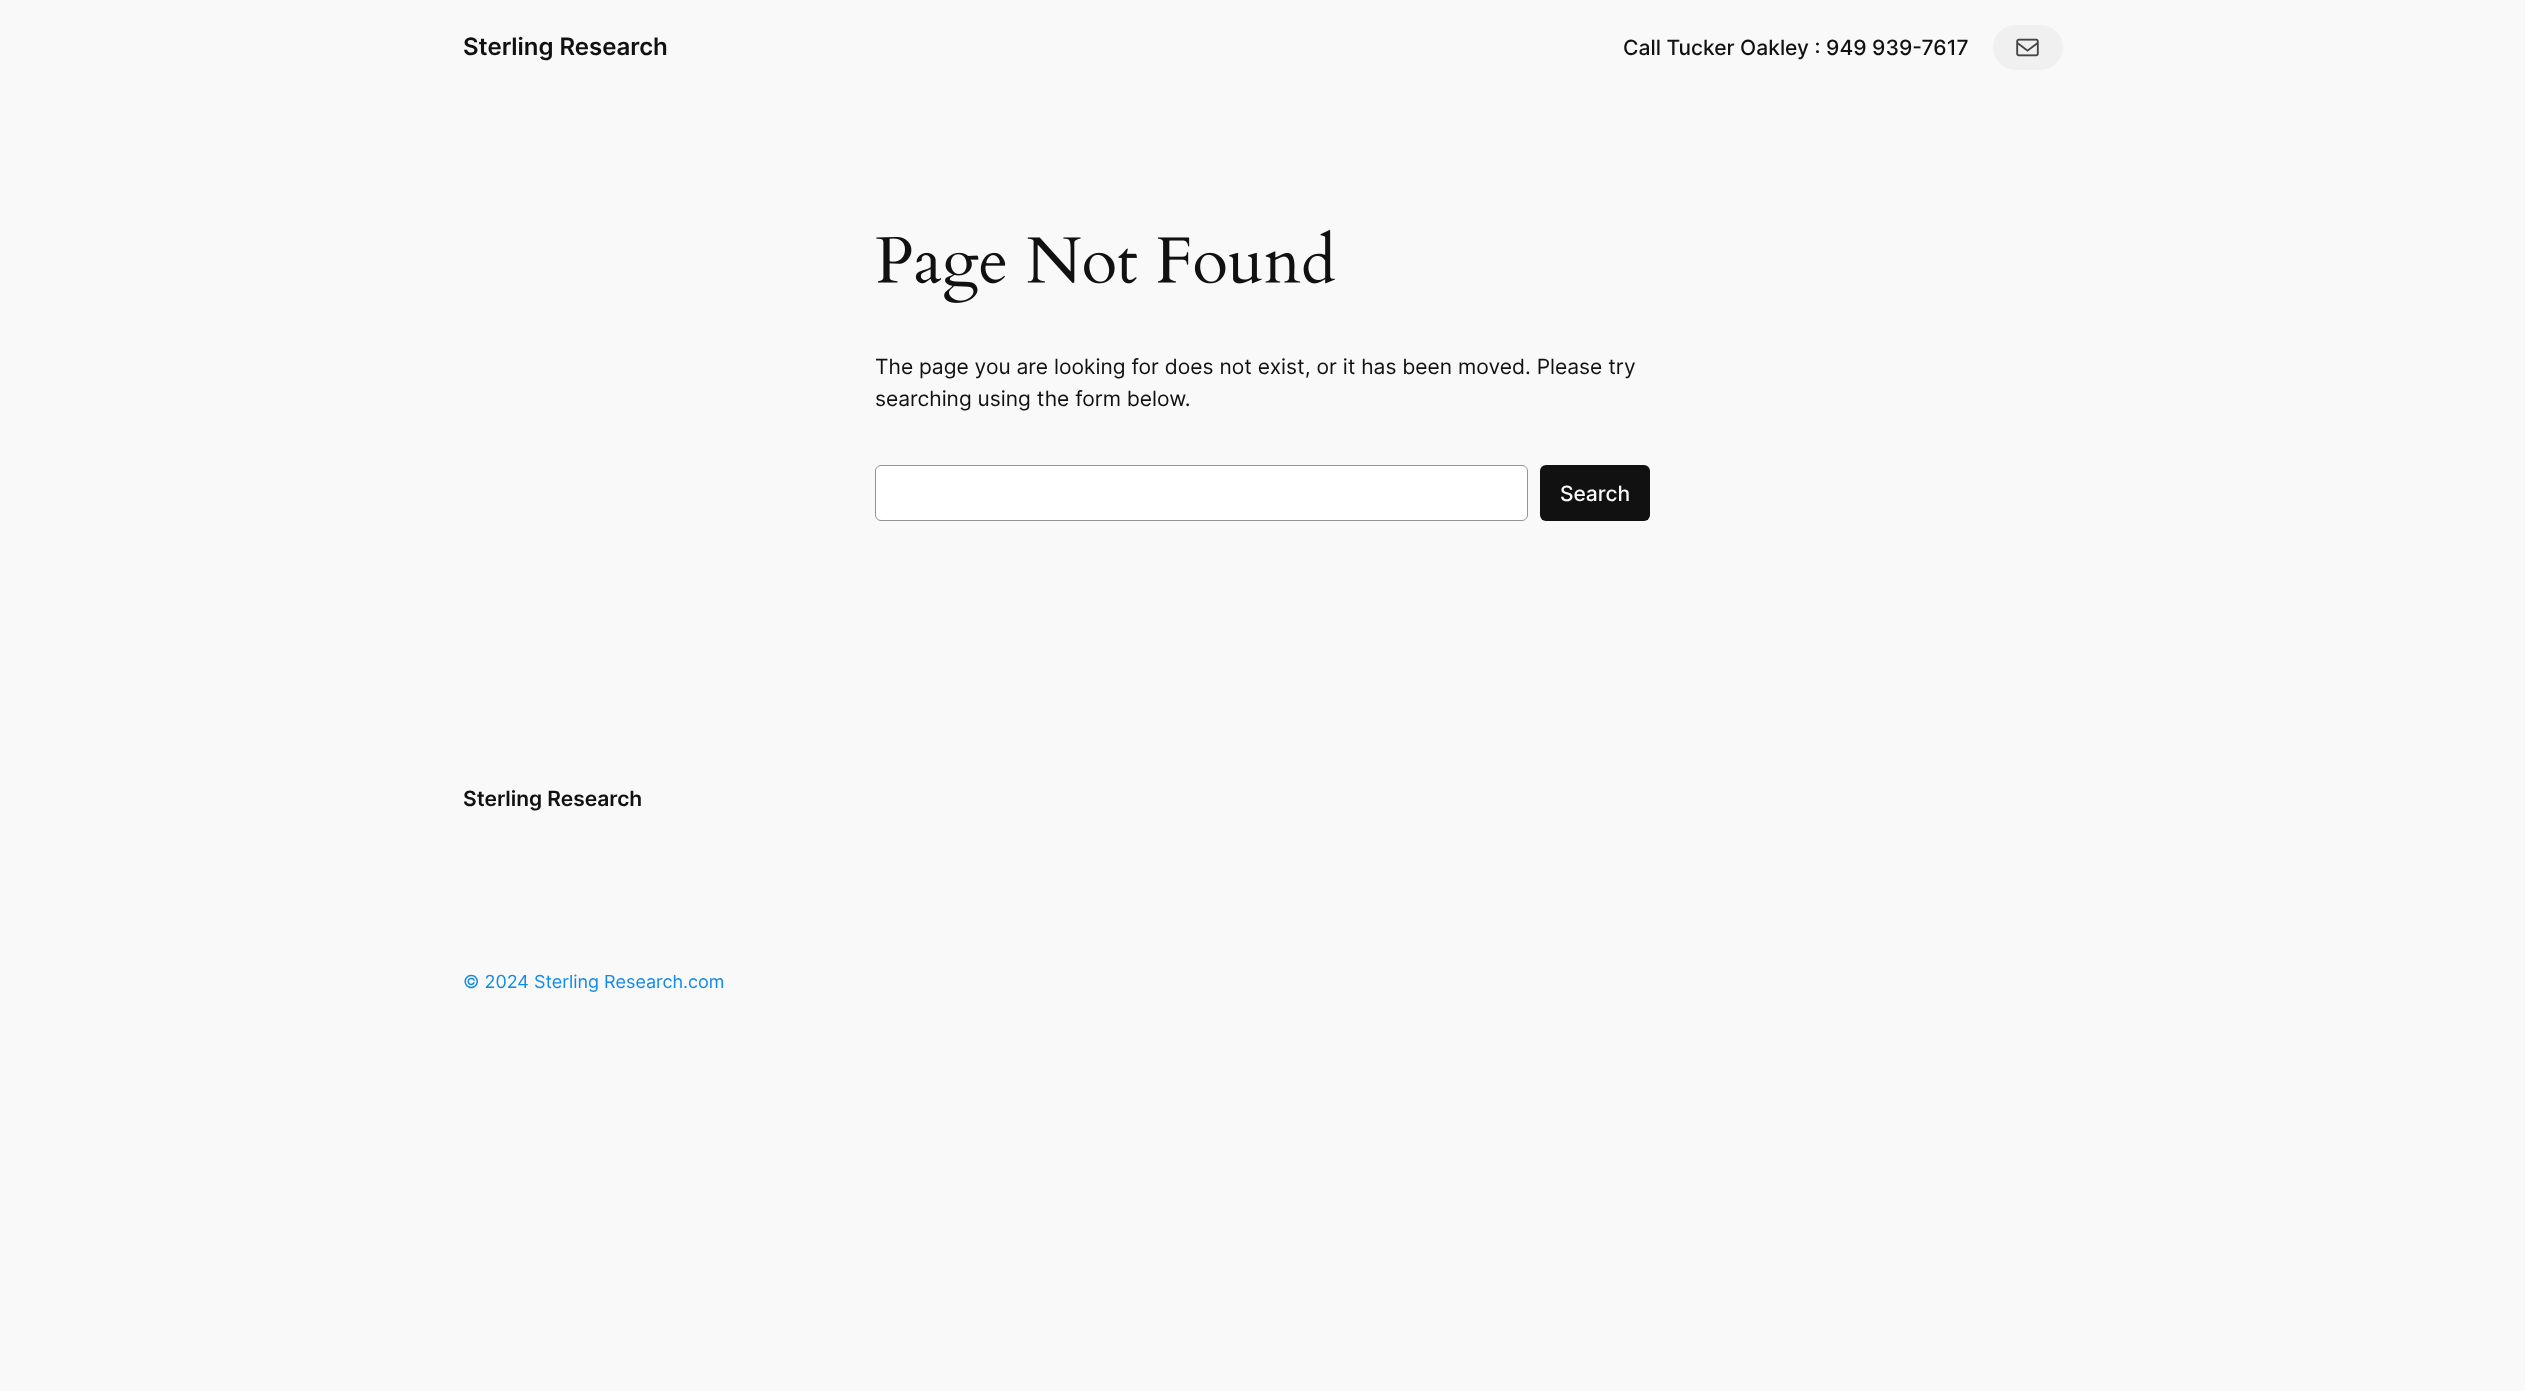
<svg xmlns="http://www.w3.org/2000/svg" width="2525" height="1391">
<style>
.a{font:600 24px Inter;fill:#111}
.b{font:500 21px Inter;fill:#111}
.c{font:21px Inter;fill:#111}
.d{font:500 21px Inter;fill:#f9f9f9}
.e{font:600 21px Inter;fill:#111}
.f{font:18px Inter;fill:#0f8ae7}
</style>
<rect width="100%" height="100%" fill="#f9f9f9"/>
<rect fill="#f0f0f0" x="1993" y="25" width="70" height="45" rx="22.5"/>
<image href="1.png" x="2016" y="38" width="23" height="19"/>
<image href="2.png" x="876" y="230" width="459" height="73"/>
<rect fill="#fff" stroke="#949494" x="875.5" y="465.5" width="652" height="55" rx="5.5"/>
<rect fill="#111" x="1540" y="465" width="110" height="56" rx="6"/>
<text class="a" x="463" y="55">Sterling Research</text>
<text class="b" x="1623" y="55">Call Tucker Oakley : 949 939-7617</text>
<text class="c" x="875" y="374">The page you are looking for does not exist, or it has been moved. Please try</text>
<text class="c" x="875" y="406">searching using the form below.</text>
<text class="d" x="1560" y="501">Search</text>
<text class="e" x="463" y="806">Sterling Research</text>
<text class="f" x="463" y="988">© 2024 Sterling Research.com</text>
</svg>
